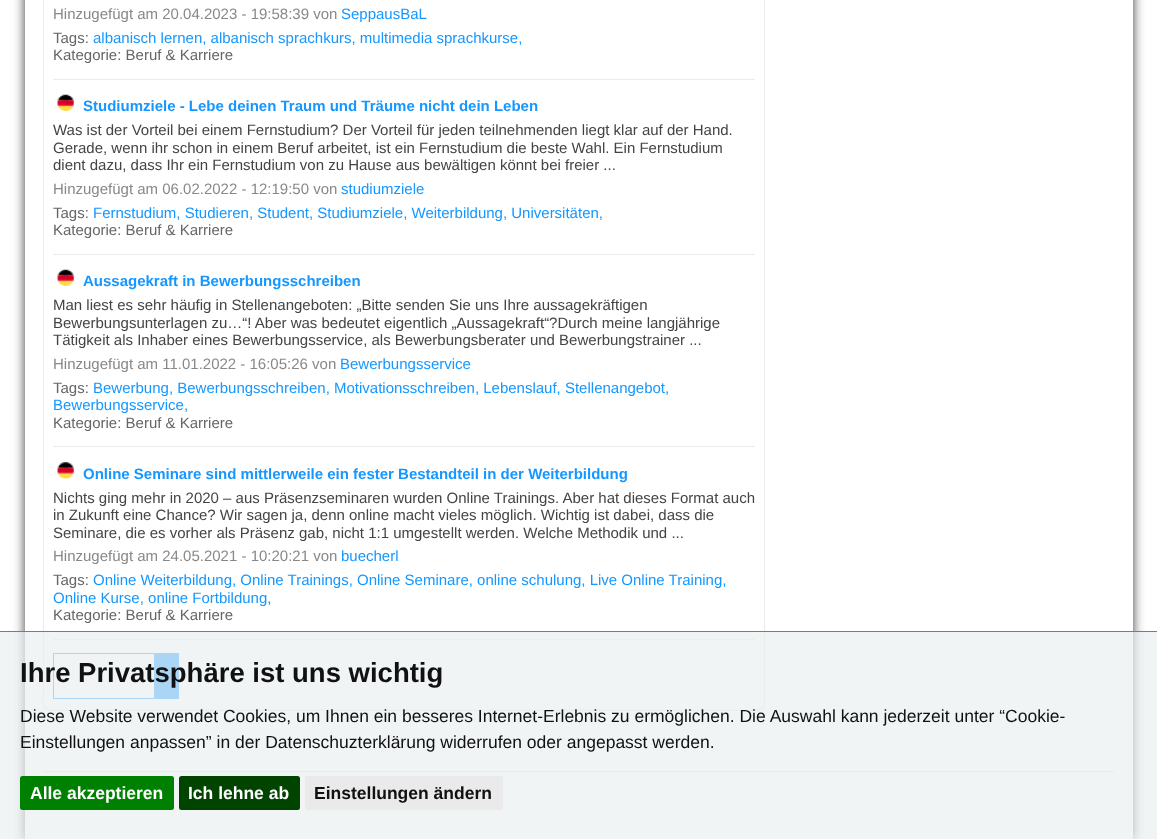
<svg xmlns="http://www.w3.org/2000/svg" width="1157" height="839">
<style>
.a{font:15px Liberation Sans;fill:#888}
.b{font:15px Liberation Sans;fill:#1597ff}
.c{font:15px Liberation Sans;fill:#666}
.d{font:bold 15px Liberation Sans;fill:#1597ff}
.e{font:15px Liberation Sans;fill:#444}
.f{font:bold 27.5px Liberation Sans;fill:#111}
.g{font:17.5px Liberation Sans;fill:#111}
.h{font:bold 17.5px Liberation Sans;fill:#fff}
.i{font:bold 17.5px Liberation Sans;fill:#111}
</style>
<defs>
<clipPath id="clip1"><path d="M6 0h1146v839h-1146zm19-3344h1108v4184h-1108z" clip-rule="evenodd"/></clipPath>
</defs>
<rect width="100%" height="100%" fill="#fff"/>
<g clip-path="url(#clip1)">
<path fill="#39393c" filter="blur(6px)" d="M25 -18h1108v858H25z"/>
</g>
<path fill="#ebecea" d="M764 0h1v699H764z"/>
<path fill="#ebecea" d="M43 0h1v699H43z"/>
<path fill="#ebecea" d="M53 79h702v1H53z"/>
<image href="1.png" x="57" y="94" width="17" height="17"/>
<path fill="#ebecea" d="M53 254h702v1H53z"/>
<image href="1.png" x="57" y="269" width="17" height="17"/>
<path fill="#ebecea" d="M53 446h702v1H53z"/>
<image href="2.png" x="57" y="462" width="17" height="17"/>
<path fill="#ebecea" d="M53 639h702v1H53z"/>
<image href="3.png" x="42" y="698" width="13" height="13"/>
<path fill="none" stroke="#1597ff" d="M53.5 653.5h101v45H53.5z"/>
<path fill="#1597ff" d="M155 653h24v46H155z"/>
<image href="4.png" x="752" y="699" width="13" height="12"/>
<image href="5.png" x="55" y="709" width="698" height="2"/>
<path fill="#ddd" d="M44 771h1070v1H44z"/>
<path fill="#eaeff1b3" d="M0 632h1157v207H0z"/>
<path fill="#1597ff" d="M0 631h1157v1H0z"/>
<rect fill="#008000" x="20" y="776" width="154" height="34" rx="2.5"/>
<rect fill="#040" x="179" y="776" width="121" height="34" rx="2.5"/>
<rect fill="#eaeaea" x="305" y="776" width="198" height="34" rx="2.5"/>
<text class="a" x="53" y="19">Hinzugefügt am 20.04.2023 - 19:58:39 von</text>
<text class="b" x="341" y="19">SeppausBaL</text>
<text class="c" x="53" y="43">Tags:</text>
<text class="b" x="93" y="43">albanisch lernen, albanisch sprachkurs, multimedia sprachkurse,</text>
<text class="c" x="53" y="60">Kategorie: Beruf &amp; Karriere</text>
<text class="d" x="83" y="111">Studiumziele - Lebe deinen Traum und Träume nicht dein Leben</text>
<text class="e" x="53" y="135">Was ist der Vorteil bei einem Fernstudium? Der Vorteil für jeden teilnehmenden liegt klar auf der Hand.</text>
<text class="e" x="53" y="153">Gerade, wenn ihr schon in einem Beruf arbeitet, ist ein Fernstudium die beste Wahl. Ein Fernstudium</text>
<text class="e" x="53" y="170">dient dazu, dass Ihr ein Fernstudium von zu Hause aus bewältigen könnt bei freier ...</text>
<text class="a" x="53" y="194">Hinzugefügt am 06.02.2022 - 12:19:50 von</text>
<text class="b" x="341" y="194">studiumziele</text>
<text class="c" x="53" y="218">Tags:</text>
<text class="b" x="93" y="218">Fernstudium, Studieren, Student, Studiumziele, Weiterbildung, Universitäten,</text>
<text class="c" x="53" y="235">Kategorie: Beruf &amp; Karriere</text>
<text class="d" x="83" y="286">Aussagekraft in Bewerbungsschreiben</text>
<text class="e" x="53" y="310">Man liest es sehr häufig in Stellenangeboten: „Bitte senden Sie uns Ihre aussagekräftigen</text>
<text class="e" x="53" y="328">Bewerbungsunterlagen zu…“! Aber was bedeutet eigentlich „Aussagekraft“?Durch meine langjährige</text>
<text class="e" x="53" y="345">Tätigkeit als Inhaber eines Bewerbungsservice, als Bewerbungsberater und Bewerbungstrainer ...</text>
<text class="a" x="53" y="369">Hinzugefügt am 11.01.2022 - 16:05:26 von</text>
<text class="b" x="340" y="369">Bewerbungsservice</text>
<text class="c" x="53" y="393">Tags:</text>
<text class="b" x="93" y="393">Bewerbung, Bewerbungsschreiben, Motivationsschreiben, Lebenslauf, Stellenangebot,</text>
<text class="b" x="53" y="410">Bewerbungsservice,</text>
<text class="c" x="53" y="428">Kategorie: Beruf &amp; Karriere</text>
<text class="d" x="83" y="479">Online Seminare sind mittlerweile ein fester Bestandteil in der Weiterbildung</text>
<text class="e" x="53" y="503">Nichts ging mehr in 2020 – aus Präsenzseminaren wurden Online Trainings. Aber hat dieses Format auch</text>
<text class="e" x="53" y="520">in Zukunft eine Chance? Wir sagen ja, denn online macht vieles möglich. Wichtig ist dabei, dass die</text>
<text class="e" x="53" y="538">Seminare, die es vorher als Präsenz gab, nicht 1:1 umgestellt werden. Welche Methodik und ...</text>
<text class="a" x="53" y="561">Hinzugefügt am 24.05.2021 - 10:20:21 von</text>
<text class="b" x="341" y="561">buecherl</text>
<text class="c" x="53" y="585">Tags:</text>
<text class="b" x="93" y="585">Online Weiterbildung, Online Trainings, Online Seminare, online schulung, Live Online Training,</text>
<text class="b" x="53" y="603">Online Kurse, online Fortbildung,</text>
<text class="c" x="53" y="620">Kategorie: Beruf &amp; Karriere</text>
<text class="f" x="20" y="682">Ihre Privatsphäre ist uns wichtig</text>
<text class="g" x="20" y="722">Diese Website verwendet Cookies, um Ihnen ein besseres Internet-Erlebnis zu ermöglichen. Die Auswahl kann jederzeit unter “Cookie-</text>
<text class="g" x="20" y="748">Einstellungen anpassen” in der Datenschuzterklärung widerrufen oder angepasst werden.</text>
<text class="h" x="30" y="799">Alle akzeptieren</text>
<text class="h" x="188" y="799">Ich lehne ab</text>
<text class="i" x="314" y="799">Einstellungen ändern</text>
</svg>
